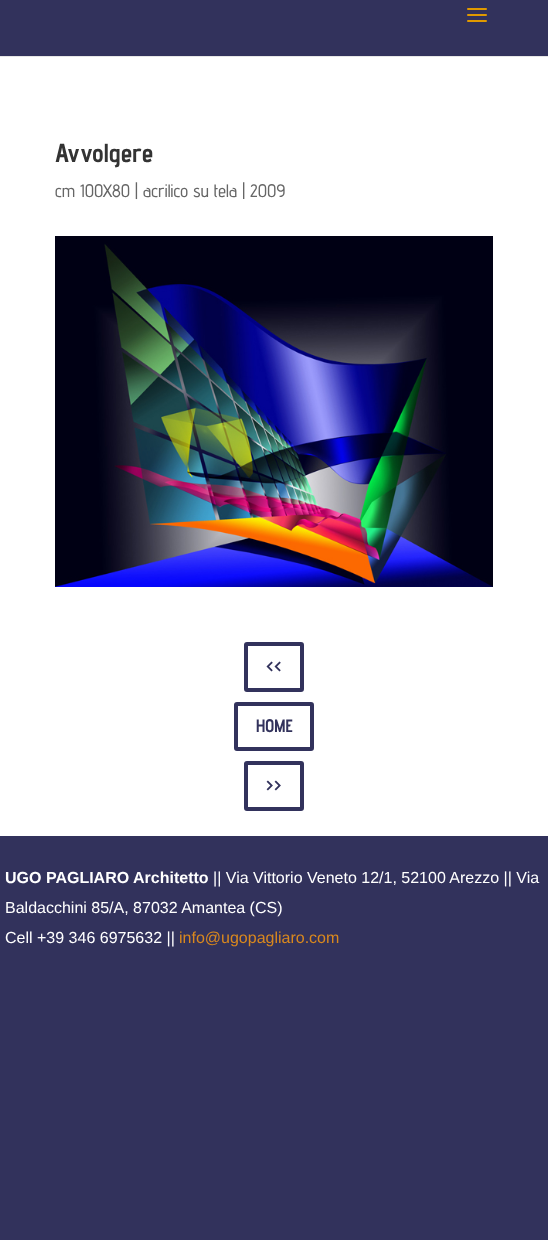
<svg xmlns="http://www.w3.org/2000/svg" width="548" height="1240">
<style>
.a{font:bold 26px Advent Pro;fill:#333}
.b{font:500 18px Advent Pro;fill:#666}
.c{font:bold 18px Advent Pro;fill:#32325c}
.d{font:bold 16px Arimo;fill:#fff}
.e{font:16px Arimo;fill:#fff}
.f{font:16px Arimo;fill:#d9881e}
</style>
<rect width="100%" height="100%" fill="#32325c"/>
<path fill="#e6e6e6" d="M0 56h548v1H0z"/>
<image href="1.png" x="467" y="8" width="20" height="14"/>
<path fill="#fff" d="M0 57h548v779H0z"/>
<image href="2.png" x="55" y="236" width="438" height="351"/>
<rect fill="none" stroke="#32325c" stroke-width="4" x="246" y="644" width="56" height="46" rx="1"/>
<rect fill="none" stroke="#32325c" stroke-width="4" x="236" y="704" width="76" height="45" rx="1"/>
<rect fill="none" stroke="#32325c" stroke-width="4" x="246" y="763" width="56" height="46" rx="1"/>
<text class="a" x="55" y="162">Avvolgere</text>
<text class="b" x="55" y="197">cm 100X80 | acrilico su tela | 2009</text>
<text class="c" x="266" y="673">&lt;&lt;</text>
<text class="c" x="256" y="732">HOME</text>
<text class="c" x="266" y="792">&gt;&gt;</text>
<text class="d" x="5" y="883">UGO PAGLIARO Architetto</text>
<text class="e" x="213" y="883">|| Via Vittorio Veneto 12/1, 52100 Arezzo || Via</text>
<text class="e" x="5" y="913">Baldacchini 85/A, 87032 Amantea (CS)</text>
<text class="e" x="5" y="943">Cell +39 346 6975632 ||</text>
<text class="f" x="179" y="943">info@ugopagliaro.com</text>
</svg>
